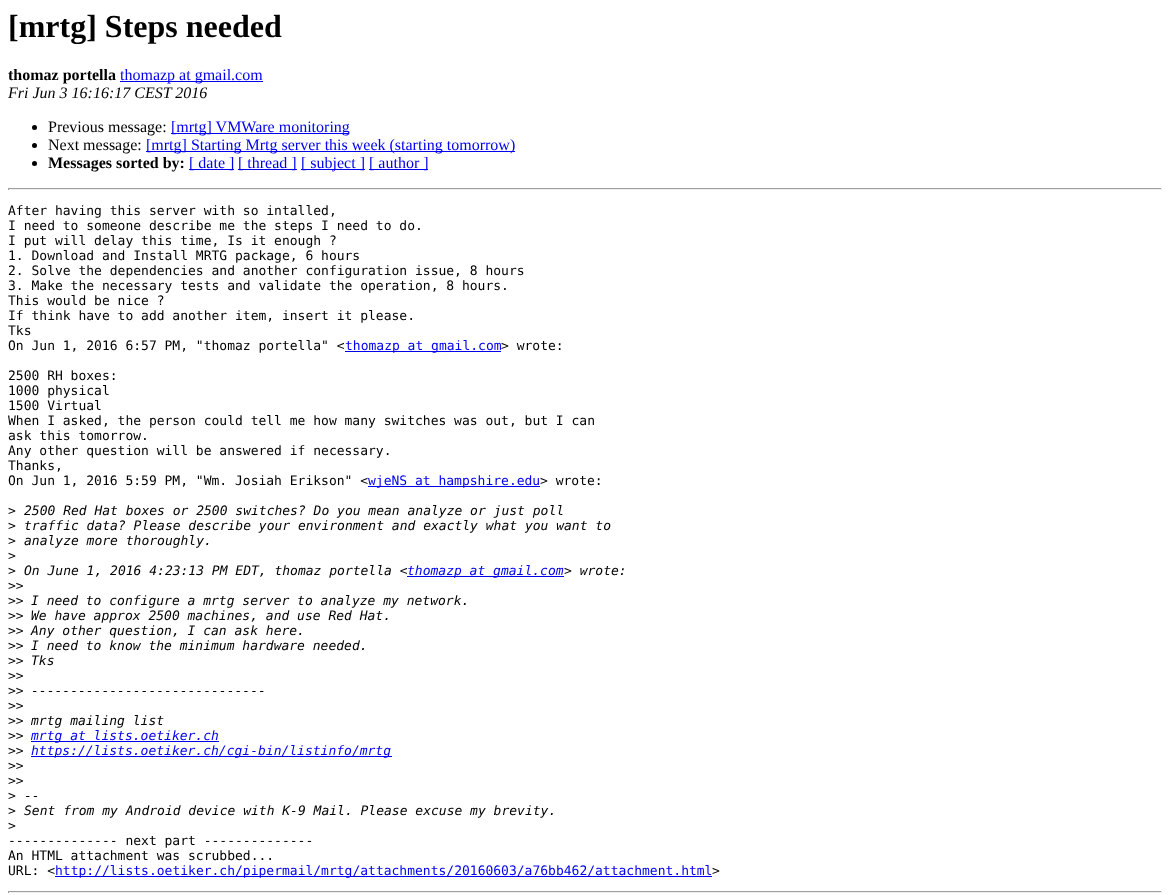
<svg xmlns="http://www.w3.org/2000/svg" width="1170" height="895">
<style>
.a{font:bold 32px Liberation Serif;fill:#000}
.b{font:bold 16px Liberation Serif;fill:#000}
.c{font:16px Liberation Serif;fill:#00e}
.d{font:italic 16px Liberation Serif;fill:#000}
.e{font:16px Liberation Serif;fill:#000}
.f{font:13px DejaVu Sans Mono;fill:#000}
.g{font:13px DejaVu Sans Mono;fill:#00e}
.h{font:italic 13px DejaVu Sans Mono;fill:#000}
.i{font:italic 13px DejaVu Sans Mono;fill:#00e}
</style>
<rect width="100%" height="100%" fill="#fff"/>
<path fill="#00e" d="M120 81h143v1H120z"/>
<circle fill="#000" cx="34.5" cy="127.5" r="2.5"/>
<path fill="#00e" d="M171 133h178v1H171z"/>
<circle fill="#000" cx="34.5" cy="145.5" r="2.5"/>
<path fill="#00e" d="M146 151h369v1H146z"/>
<circle fill="#000" cx="34.5" cy="163.5" r="2.5"/>
<path fill="#00e" d="M189 169h45v1H189z"/>
<path fill="#00e" d="M238 169h59v1H238z"/>
<path fill="#00e" d="M301 169h64v1H301z"/>
<path fill="#00e" d="M369 169h59v1H369z"/>
<path fill="#9f9f9f" d="M8 188h1154v1H8z"/>
<path fill="#eee" d="M1161 188h1v2H1161z"/>
<path fill="#eee" d="M8 189h1154v1H8z"/>
<path fill="#9f9f9f" d="M8 188h1v2H8z"/>
<path fill="#00e" d="M345 351h156v1H345z"/>
<path fill="#00e" d="M368 486h172v1H368z"/>
<path fill="#00e" d="M407 576h157v1H407z"/>
<path fill="#00e" d="M31 741h188v1H31z"/>
<path fill="#00e" d="M31 756h361v1H31z"/>
<path fill="#00e" d="M55 876h657v1H55z"/>
<path fill="#9f9f9f" d="M8 891h1154v1H8z"/>
<path fill="#eee" d="M1161 891h1v2H1161z"/>
<path fill="#eee" d="M8 892h1154v1H8z"/>
<path fill="#9f9f9f" d="M8 891h1v2H8z"/>
<text class="a" x="8" y="37">[mrtg] Steps needed</text>
<text class="b" x="8" y="80">thomaz portella</text>
<text class="c" x="120" y="80">thomazp at gmail.com</text>
<text class="d" x="8" y="98">Fri Jun 3 16:16:17 CEST 2016</text>
<text class="e" x="48" y="132">Previous message:</text>
<text class="c" x="171" y="132">[mrtg] VMWare monitoring</text>
<text class="e" x="48" y="150">Next message:</text>
<text class="c" x="146" y="150">[mrtg] Starting Mrtg server this week (starting tomorrow)</text>
<text class="b" x="48" y="168">Messages sorted by:</text>
<text class="c" x="189" y="168">[ date ]</text>
<text class="c" x="238" y="168">[ thread ]</text>
<text class="c" x="301" y="168">[ subject ]</text>
<text class="c" x="369" y="168">[ author ]</text>
<text class="f" x="8" y="215">After having this server with so intalled,</text>
<text class="f" x="8" y="230">I need to someone describe me the steps I need to do.</text>
<text class="f" x="8" y="245">I put will delay this time, Is it enough ?</text>
<text class="f" x="8" y="260">1. Download and Install MRTG package, 6 hours</text>
<text class="f" x="8" y="275">2. Solve the dependencies and another configuration issue, 8 hours</text>
<text class="f" x="8" y="290">3. Make the necessary tests and validate the operation, 8 hours.</text>
<text class="f" x="8" y="305">This would be nice ?</text>
<text class="f" x="8" y="320">If think have to add another item, insert it please.</text>
<text class="f" x="8" y="335">Tks</text>
<text class="f" x="8" y="350">On Jun 1, 2016 6:57 PM, "thomaz portella" &lt;</text>
<text class="g" x="345" y="350">thomazp at gmail.com</text>
<text class="f" x="501" y="350">&gt; wrote:</text>
<text class="f" x="8" y="380">2500 RH boxes:</text>
<text class="f" x="8" y="395">1000 physical</text>
<text class="f" x="8" y="410">1500 Virtual</text>
<text class="f" x="8" y="425">When I asked, the person could tell me how many switches was out, but I can</text>
<text class="f" x="8" y="440">ask this tomorrow.</text>
<text class="f" x="8" y="455">Any other question will be answered if necessary.</text>
<text class="f" x="8" y="470">Thanks,</text>
<text class="f" x="8" y="485">On Jun 1, 2016 5:59 PM, "Wm. Josiah Erikson" &lt;</text>
<text class="g" x="368" y="485">wjeNS at hampshire.edu</text>
<text class="f" x="540" y="485">&gt; wrote:</text>
<text class="f" x="8" y="515">&gt;</text>
<text class="h" x="24" y="515">2500 Red Hat boxes or 2500 switches? Do you mean analyze or just poll</text>
<text class="f" x="8" y="530">&gt;</text>
<text class="h" x="24" y="530">traffic data? Please describe your environment and exactly what you want to</text>
<text class="f" x="8" y="545">&gt;</text>
<text class="h" x="24" y="545">analyze more thoroughly.</text>
<text class="f" x="8" y="560">&gt;</text>
<text class="f" x="8" y="575">&gt;</text>
<text class="h" x="24" y="575">On June 1, 2016 4:23:13 PM EDT, thomaz portella &lt;</text>
<text class="i" x="407" y="575">thomazp at gmail.com</text>
<text class="h" x="564" y="575">&gt; wrote:</text>
<text class="f" x="8" y="590">&gt;&gt;</text>
<text class="f" x="8" y="605">&gt;&gt;</text>
<text class="h" x="31" y="605">I need to configure a mrtg server to analyze my network.</text>
<text class="f" x="8" y="620">&gt;&gt;</text>
<text class="h" x="31" y="620">We have approx 2500 machines, and use Red Hat.</text>
<text class="f" x="8" y="635">&gt;&gt;</text>
<text class="h" x="31" y="635">Any other question, I can ask here.</text>
<text class="f" x="8" y="650">&gt;&gt;</text>
<text class="h" x="31" y="650">I need to know the minimum hardware needed.</text>
<text class="f" x="8" y="665">&gt;&gt;</text>
<text class="h" x="31" y="665">Tks</text>
<text class="f" x="8" y="680">&gt;&gt;</text>
<text class="f" x="8" y="695">&gt;&gt;</text>
<text class="h" x="31" y="695">------------------------------</text>
<text class="f" x="8" y="710">&gt;&gt;</text>
<text class="f" x="8" y="725">&gt;&gt;</text>
<text class="h" x="31" y="725">mrtg mailing list</text>
<text class="f" x="8" y="740">&gt;&gt;</text>
<text class="i" x="31" y="740">mrtg at lists.oetiker.ch</text>
<text class="f" x="8" y="755">&gt;&gt;</text>
<text class="i" x="31" y="755">https://lists.oetiker.ch/cgi-bin/listinfo/mrtg</text>
<text class="f" x="8" y="770">&gt;&gt;</text>
<text class="f" x="8" y="785">&gt;&gt;</text>
<text class="f" x="8" y="800">&gt;</text>
<text class="h" x="24" y="800">--</text>
<text class="f" x="8" y="815">&gt;</text>
<text class="h" x="24" y="815">Sent from my Android device with K-9 Mail. Please excuse my brevity.</text>
<text class="f" x="8" y="830">&gt;</text>
<text class="f" x="8" y="845">-------------- next part --------------</text>
<text class="f" x="8" y="860">An HTML attachment was scrubbed...</text>
<text class="f" x="8" y="875">URL: &lt;</text>
<text class="g" x="55" y="875">http://lists.oetiker.ch/pipermail/mrtg/attachments/20160603/a76bb462/attachment.html</text>
<text class="f" x="712" y="875">&gt;</text>
</svg>
